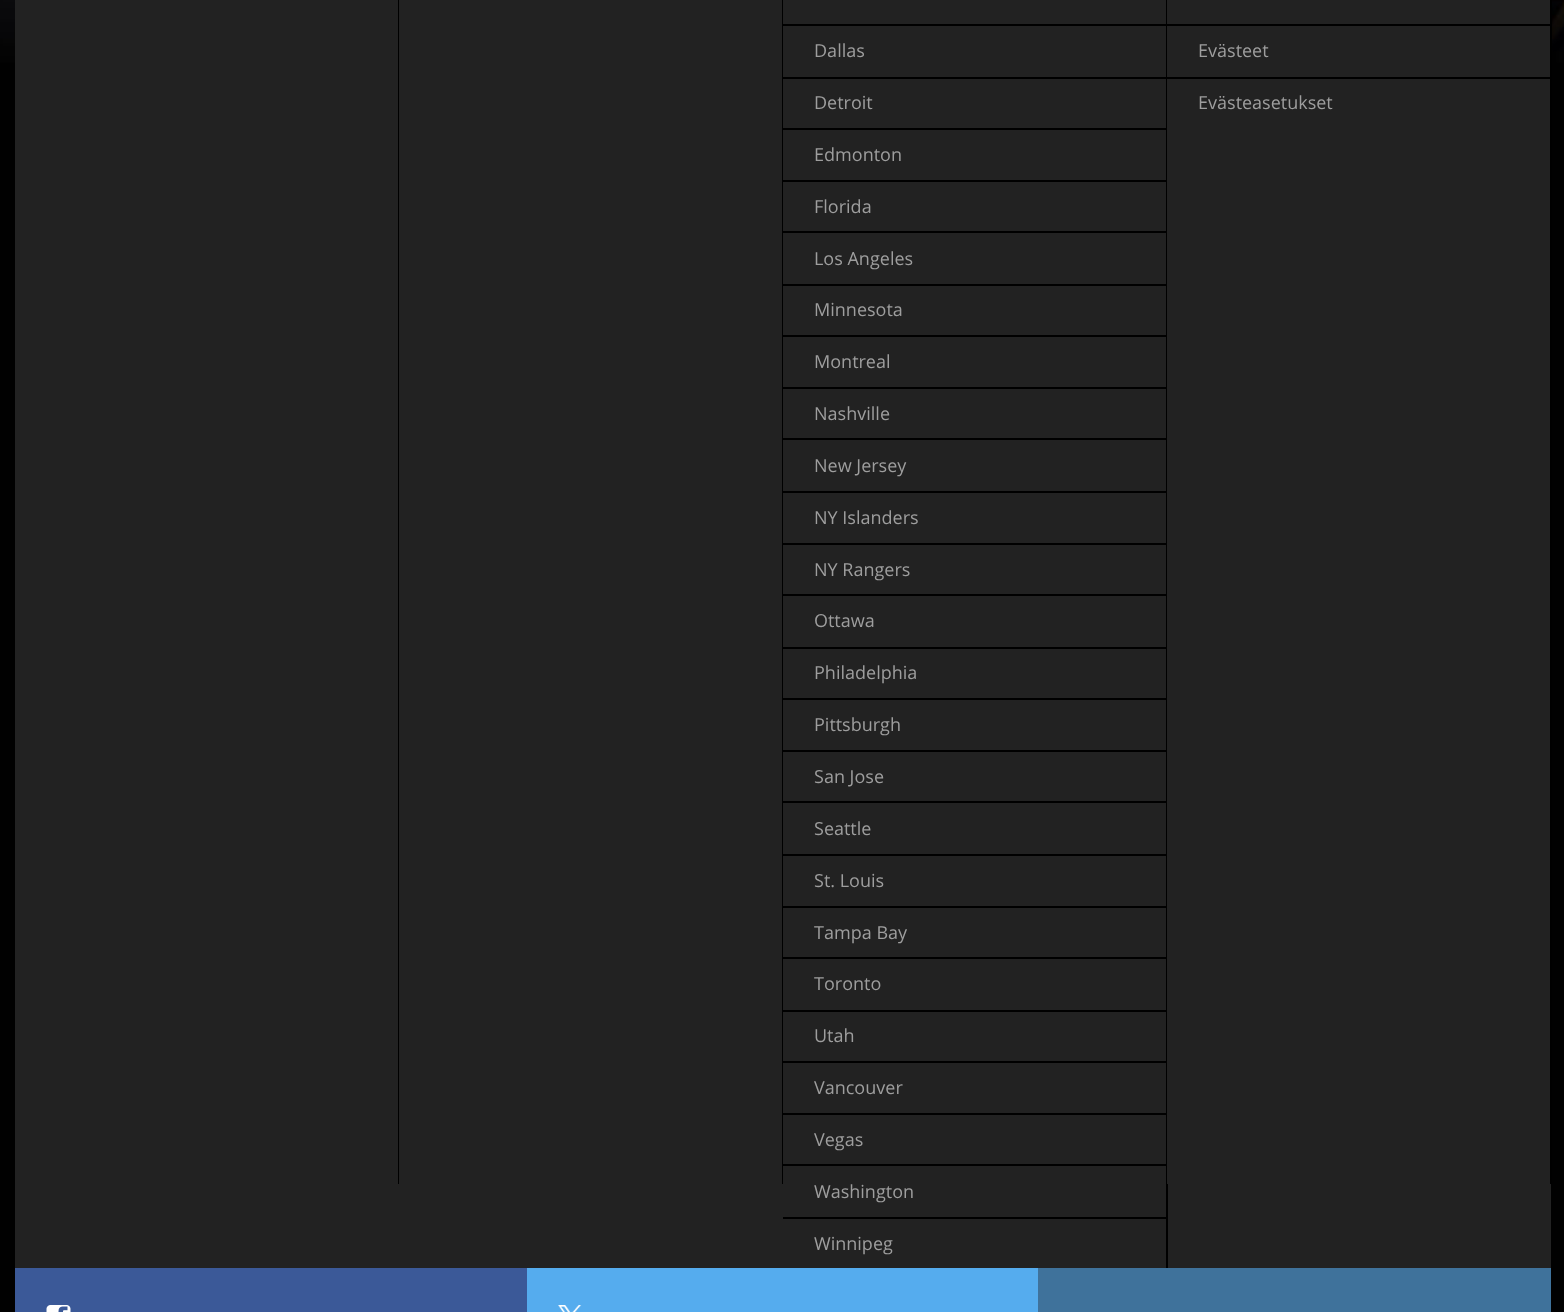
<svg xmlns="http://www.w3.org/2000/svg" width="1564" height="1312">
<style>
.a{font:18px Open Sans;fill:#9e9e9e}
</style>
<rect width="100%" height="100%" fill="#010101"/>
<image href="1.png" x="0" y="0" width="1564" height="63"/>
<path fill="#222" d="M15 0h1536v1268H15z"/>
<path fill="#000" d="M398 0h1v1184H398z"/>
<path fill="#000" d="M782 0h1v1184H782z"/>
<path fill="#000" d="M1166 0h2v1268H1166z"/>
<path fill="#000" d="M783 24h383v2H783z"/>
<path fill="#000" d="M783 77h383v2H783z"/>
<path fill="#000" d="M783 128h383v2H783z"/>
<path fill="#000" d="M783 180h383v2H783z"/>
<path fill="#000" d="M783 231h383v2H783z"/>
<path fill="#000" d="M783 284h383v2H783z"/>
<path fill="#000" d="M783 335h383v2H783z"/>
<path fill="#000" d="M783 387h383v2H783z"/>
<path fill="#000" d="M783 438h383v2H783z"/>
<path fill="#000" d="M783 491h383v2H783z"/>
<path fill="#000" d="M783 543h383v2H783z"/>
<path fill="#000" d="M783 594h383v2H783z"/>
<path fill="#000" d="M783 647h383v2H783z"/>
<path fill="#000" d="M783 698h383v2H783z"/>
<path fill="#000" d="M783 750h383v2H783z"/>
<path fill="#000" d="M783 801h383v2H783z"/>
<path fill="#000" d="M783 854h383v2H783z"/>
<path fill="#000" d="M783 906h383v2H783z"/>
<path fill="#000" d="M783 957h383v2H783z"/>
<path fill="#000" d="M783 1010h383v2H783z"/>
<path fill="#000" d="M783 1061h383v2H783z"/>
<path fill="#000" d="M783 1113h383v2H783z"/>
<path fill="#000" d="M783 1164h383v2H783z"/>
<path fill="#000" d="M783 1217h383v2H783z"/>
<path fill="#222" d="M1167 0h1v1184H1167z"/>
<path fill="#000" d="M1550 0h2v1184H1550z"/>
<path fill="#000" d="M1167 24h383v2H1167z"/>
<path fill="#000" d="M1167 77h383v2H1167z"/>
<path fill="#3b5998" d="M15 1268h512v44H15z"/>
<image href="2.png" x="46" y="1305" width="25" height="7"/>
<path fill="#55acee" d="M527 1268h511v44H527z"/>
<image href="3.png" x="558" y="1305" width="24" height="7"/>
<path fill="#3f729b" d="M1038 1268h513v44H1038z"/>
<text class="a" x="814" y="57">Dallas</text>
<text class="a" x="814" y="109">Detroit</text>
<text class="a" x="814" y="161">Edmonton</text>
<text class="a" x="814" y="213">Florida</text>
<text class="a" x="814" y="265">Los Angeles</text>
<text class="a" x="814" y="316">Minnesota</text>
<text class="a" x="814" y="368">Montreal</text>
<text class="a" x="814" y="420">Nashville</text>
<text class="a" x="814" y="472">New Jersey</text>
<text class="a" x="814" y="524">NY Islanders</text>
<text class="a" x="814" y="576">NY Rangers</text>
<text class="a" x="814" y="627">Ottawa</text>
<text class="a" x="814" y="679">Philadelphia</text>
<text class="a" x="814" y="731">Pittsburgh</text>
<text class="a" x="814" y="783">San Jose</text>
<text class="a" x="814" y="835">Seattle</text>
<text class="a" x="814" y="887">St. Louis</text>
<text class="a" x="814" y="939">Tampa Bay</text>
<text class="a" x="814" y="990">Toronto</text>
<text class="a" x="814" y="1042">Utah</text>
<text class="a" x="814" y="1094">Vancouver</text>
<text class="a" x="814" y="1146">Vegas</text>
<text class="a" x="814" y="1198">Washington</text>
<text class="a" x="814" y="1250">Winnipeg</text>
<text class="a" x="1198" y="57">Evästeet</text>
<text class="a" x="1198" y="109">Evästeasetukset</text>
</svg>
